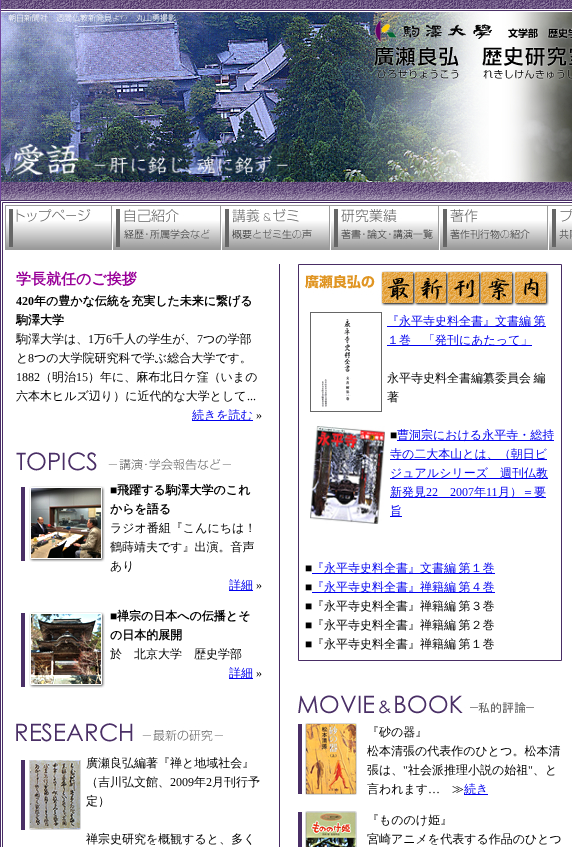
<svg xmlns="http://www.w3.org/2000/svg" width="572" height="847">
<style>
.a{font:bold 15px WenQuanYi Zen Hei;fill:#909}
.b{font:bold 12px Liberation Serif;fill:#000}
.c{font:bold 12px WenQuanYi Zen Hei;fill:#000}
.d{font:500 12px WenQuanYi Zen Hei;fill:#000}
.e{font:12px Liberation Serif;fill:#000}
.f{font:500 12px WenQuanYi Zen Hei;fill:#00e}
.g{font:12px Liberation Serif;fill:#00e}
</style>
<rect width="100%" height="100%" fill="#71469c"/>
<image href="1.png" x="1" y="0" width="571" height="200"/>
<image href="2.png" x="13" y="143" width="276" height="33"/>
<path fill="#fff" stroke="#492d65" d="M0.5 200.5h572v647H0.5z"/>
<path fill="none" stroke="#492d65" d="M2.5 202.5h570v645H2.5z"/>
<image href="3.png" x="5" y="205" width="107" height="45"/>
<image href="4.png" x="112" y="205" width="109" height="45"/>
<image href="5.png" x="221" y="205" width="109" height="45"/>
<image href="6.png" x="330" y="205" width="109" height="45"/>
<image href="7.png" x="439" y="205" width="109" height="45"/>
<image href="8.png" x="548" y="205" width="24" height="45"/>
<path fill="#00e" d="M192 420h61v1H192z"/>
<image href="9.png" x="16" y="452" width="215" height="19"/>
<image href="10.png" x="21" y="486" width="84" height="76"/>
<path fill="#00e" d="M229 590h24v1H229z"/>
<image href="11.png" x="21" y="612" width="84" height="76"/>
<path fill="#00e" d="M229 678h24v1H229z"/>
<image href="12.png" x="16" y="723" width="207" height="19"/>
<image href="13.png" x="21" y="760" width="60" height="70"/>
<path fill="#492d65" d="M279 264h1v583H279z"/>
<path fill="none" stroke="#492d65" d="M298.5 264.5h263v396H298.5z"/>
<image href="14.png" x="305" y="271" width="244" height="35"/>
<image href="15.png" x="310" y="312" width="72" height="100"/>
<path fill="#00e" d="M387 326h159v1H387z"/>
<path fill="#00e" d="M387 345h145v1H387z"/>
<image href="16.png" x="310" y="426" width="75" height="98"/>
<path fill="#00e" d="M397 440h157v1H397z"/>
<path fill="#00e" d="M390 459h157v1H390z"/>
<path fill="#00e" d="M390 478h158v1H390z"/>
<path fill="#00e" d="M390 497h156v1H390z"/>
<path fill="#00e" d="M390 516h12v1H390z"/>
<path fill="#00e" d="M312 573h183v1H312z"/>
<path fill="#00e" d="M312 592h183v1H312z"/>
<image href="17.png" x="298" y="695" width="236" height="19"/>
<image href="18.png" x="298" y="723" width="59" height="72"/>
<path fill="#00e" d="M464 794h24v1H464z"/>
<image href="19.png" x="298" y="811" width="59" height="36"/>
<text class="a" x="16" y="284">学長就任のご挨拶</text>
<text class="b" x="16" y="305">420</text>
<text class="c" x="34" y="305">年の豊かな伝統を充実した未来に繋げる</text>
<text class="c" x="16" y="324">駒澤大学</text>
<text class="d" x="16" y="343">駒澤大学は、</text>
<text class="e" x="88" y="343">1</text>
<text class="d" x="94" y="343">万</text>
<text class="e" x="106" y="343">6</text>
<text class="d" x="112" y="343">千人の学生が、</text>
<text class="e" x="197" y="343">7</text>
<text class="d" x="203" y="343">つの学部</text>
<text class="d" x="16" y="362">と</text>
<text class="e" x="28" y="362">8</text>
<text class="d" x="34" y="362">つの大学院研究科で学ぶ総合大学です。</text>
<text class="e" x="16" y="381">1882</text>
<text class="d" x="40" y="381">（明治</text>
<text class="e" x="76" y="381">15</text>
<text class="d" x="88" y="381">）年に、麻布北日ケ窪（いまの</text>
<text class="d" x="16" y="400">六本木ヒルズ辺り）に近代的な大学として</text>
<text class="e" x="247" y="400">...</text>
<text class="f" x="192" y="419">続きを読む</text>
<text class="e" x="256" y="419">»</text>
<text class="b" x="110" y="494">■</text>
<text class="c" x="117" y="494">飛躍する駒澤大学のこれ</text>
<text class="c" x="110" y="513">からを語る</text>
<text class="d" x="110" y="532">ラジオ番組『こんにちは！</text>
<text class="d" x="110" y="551">鶴蒔靖夫です』出演。音声</text>
<text class="d" x="110" y="570">あり</text>
<text class="f" x="229" y="589">詳細</text>
<text class="e" x="256" y="589">»</text>
<text class="b" x="110" y="620">■</text>
<text class="c" x="117" y="620">禅宗の日本への伝播とそ</text>
<text class="c" x="110" y="639">の日本的展開</text>
<text class="d" x="110" y="658">於　北京大学　歴史学部</text>
<text class="f" x="229" y="677">詳細</text>
<text class="e" x="256" y="677">»</text>
<text class="d" x="86" y="767">廣瀬良弘編著『禅と地域社会』</text>
<text class="d" x="86" y="786">（吉川弘文館、</text>
<text class="e" x="170" y="786">2009</text>
<text class="d" x="194" y="786">年</text>
<text class="e" x="206" y="786">2</text>
<text class="d" x="212" y="786">月刊行予</text>
<text class="d" x="86" y="805">定）</text>
<text class="d" x="86" y="843">禅宗史研究を概観すると、多く</text>
<text class="f" x="387" y="325" word-spacing="-1">『永平寺史料全書』文書編 第</text>
<text class="f" x="387" y="344">１巻</text>
<text class="f" x="423" y="344">「発刊にあたって」</text>
<text class="d" x="387" y="382" word-spacing="-1">永平寺史料全書編纂委員会 編</text>
<text class="d" x="387" y="401">著</text>
<text class="e" x="390" y="439">■</text>
<text class="f" x="397" y="439">曹洞宗における永平寺・総持</text>
<text class="f" x="390" y="458">寺の二大本山とは、（朝日ビ</text>
<text class="f" x="390" y="477">ジュアルシリーズ　週刊仏教</text>
<text class="f" x="390" y="496">新発見</text>
<text class="g" x="426" y="496">22</text>
<text class="g" x="450" y="496">2007</text>
<text class="f" x="474" y="496">年</text>
<text class="g" x="486" y="496">11</text>
<text class="f" x="498" y="496">月）＝要</text>
<text class="f" x="390" y="515">旨</text>
<text class="e" x="305" y="572">■</text>
<text class="f" x="312" y="572" word-spacing="-1">『永平寺史料全書』文書編 第１巻</text>
<text class="e" x="305" y="591">■</text>
<text class="f" x="312" y="591" word-spacing="-1">『永平寺史料全書』禅籍編 第４巻</text>
<text class="e" x="305" y="610">■</text>
<text class="d" x="312" y="610" word-spacing="-1">『永平寺史料全書』禅籍編 第３巻</text>
<text class="e" x="305" y="629">■</text>
<text class="d" x="312" y="629" word-spacing="-1">『永平寺史料全書』禅籍編 第２巻</text>
<text class="e" x="305" y="648">■</text>
<text class="d" x="312" y="648" word-spacing="-1">『永平寺史料全書』禅籍編 第１巻</text>
<text class="d" x="367" y="736">『砂の器』</text>
<text class="d" x="367" y="755">松本清張の代表作のひとつ。松本清</text>
<text class="d" x="367" y="774">張は、</text>
<text class="e" x="403" y="774">"</text>
<text class="d" x="408" y="774">社会派推理小説の始祖</text>
<text class="e" x="528" y="774">"</text>
<text class="d" x="533" y="774">、と</text>
<text class="d" x="367" y="793">言われます</text>
<text class="e" x="428" y="793">…</text>
<text class="d" x="452" y="793">≫</text>
<text class="f" x="464" y="793">続き</text>
<text class="d" x="367" y="824">『もののけ姫』</text>
<text class="d" x="367" y="843">宮崎アニメを代表する作品のひとつ</text>
</svg>
